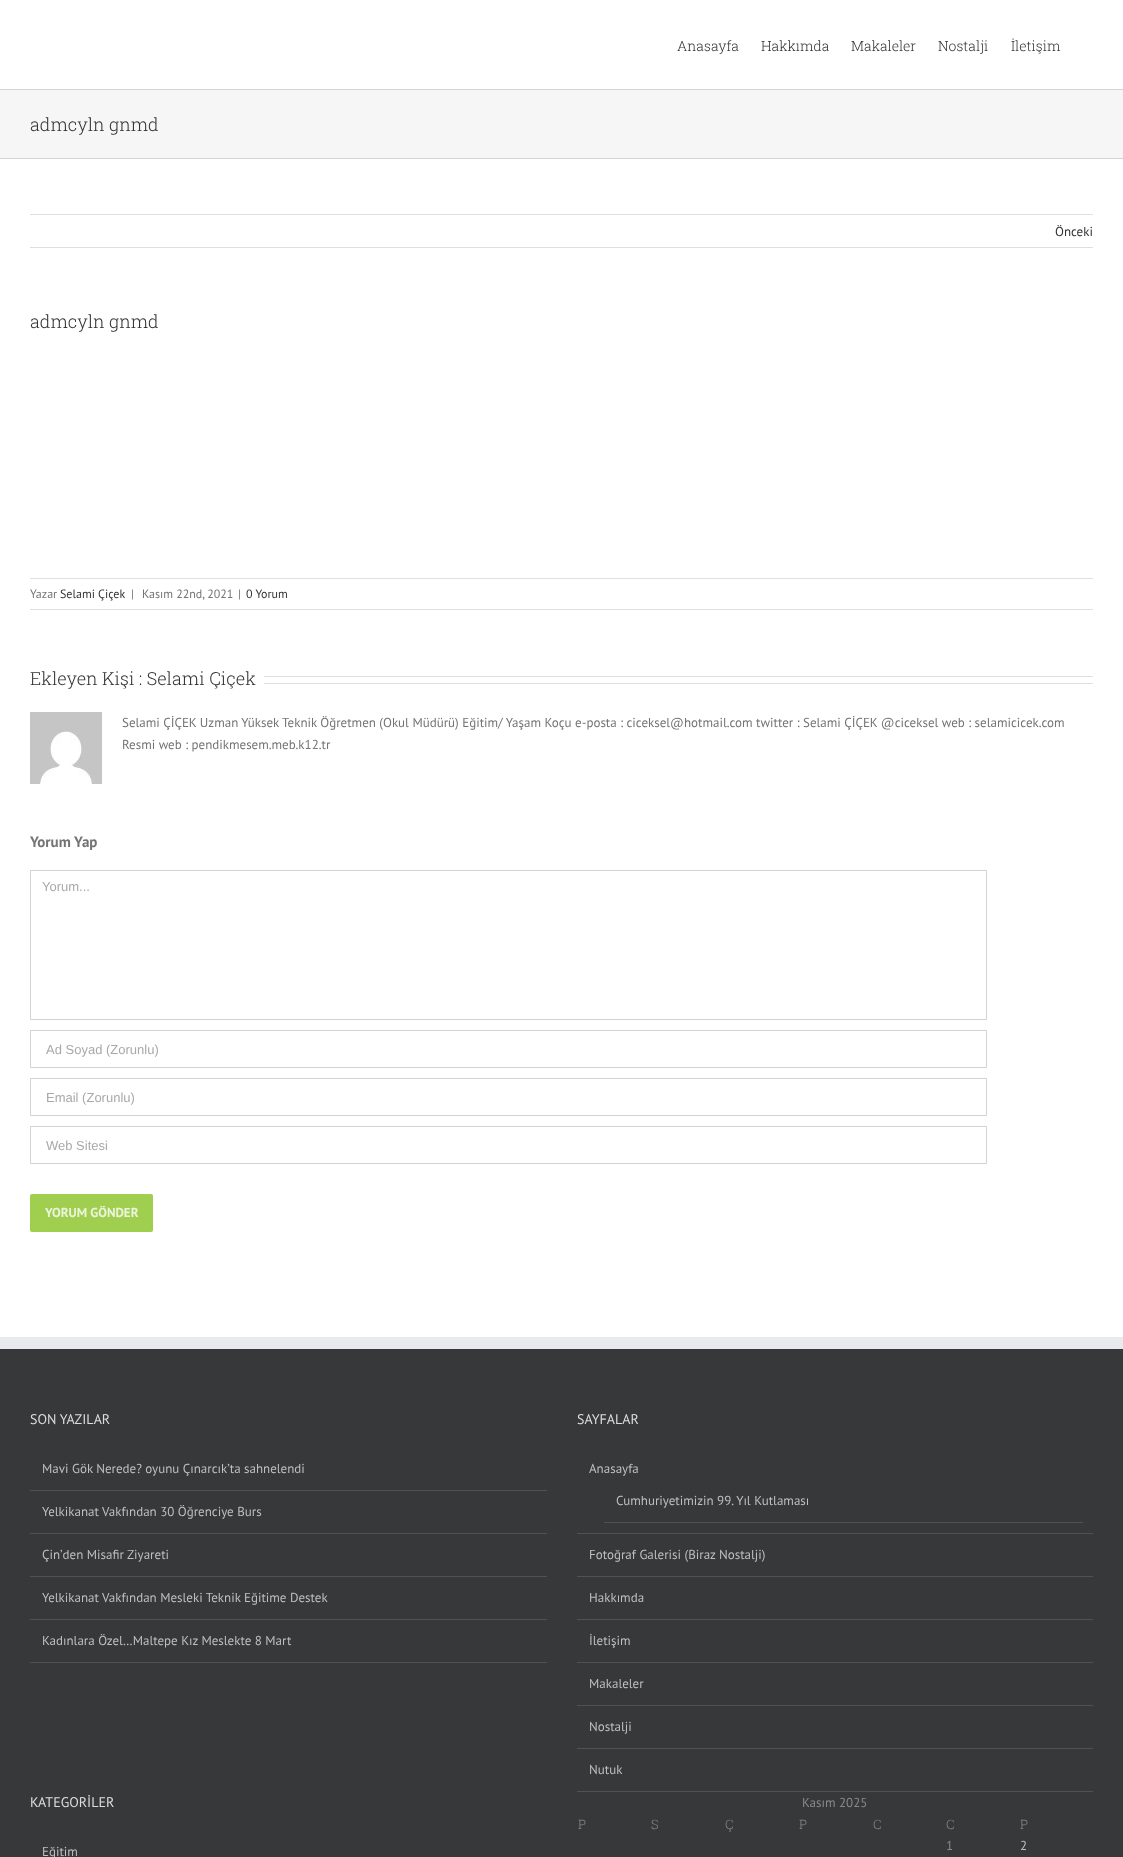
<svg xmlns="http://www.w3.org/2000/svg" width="1123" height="1857">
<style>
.a{font:300 14px Roboto Slab;fill:#333}
.b{font:300 18px Roboto Slab;fill:#333}
.c{font:13px PT Sans;fill:#333}
.d{font:12px PT Sans;fill:#747474}
.e{font:12px PT Sans;fill:#333}
.f{font:13px PT Sans;fill:#747474}
.g{font:bold 15px PT Sans;fill:#747474}
.h{font:13px Liberation Sans;fill:#aaa9a9}
.i{font:bold 13px PT Sans;fill:#ecf5dc}
.j{font:14px PT Sans;fill:#ddd}
.k{font:13px PT Sans;fill:#bfbfbf}
.l{font:13px PT Sans;fill:#8c8989}
.m{font:300 13px Roboto Slab;fill:#8c8989}
</style>
<rect width="100%" height="100%" fill="#fff"/>
<path fill="#f6f6f6" d="M0 90h1123v68H0z"/>
<path fill="#d2d3d4" d="M0 89h1123v1H0z"/>
<path fill="#d2d3d4" d="M0 158h1123v1H0z"/>
<path fill="#e0dede" d="M30 214h1063v1H30z"/>
<path fill="#e0dede" d="M30 247h1063v1H30z"/>
<path fill="#e0dede" d="M30 578h1063v1H30z"/>
<path fill="#e0dede" d="M30 609h1063v1H30z"/>
<path fill="#e0dede" d="M264 676h829v1H264z"/>
<path fill="#e0dede" d="M264 683h829v1H264z"/>
<image href="1.png" x="30" y="712" width="72" height="72"/>
<path fill="none" stroke="#d2d2d2" d="M30.5 870.5h956v149H30.5z"/>
<path fill="none" stroke="#d2d2d2" d="M30.5 1030.5h956v37H30.5z"/>
<path fill="none" stroke="#d2d2d2" d="M30.5 1078.5h956v37H30.5z"/>
<path fill="none" stroke="#d2d2d2" d="M30.5 1126.5h956v37H30.5z"/>
<rect fill="#a0ce4e" x="30" y="1194" width="123" height="38" rx="2"/>
<path fill="#363839" d="M0 1349h1123v508H0z"/>
<path fill="#e9eaee" d="M0 1337h1123v12H0z"/>
<path fill="#505152" d="M30 1490h517v1H30z"/>
<path fill="#505152" d="M30 1533h517v1H30z"/>
<path fill="#505152" d="M30 1576h517v1H30z"/>
<path fill="#505152" d="M30 1619h517v1H30z"/>
<path fill="#505152" d="M30 1662h517v1H30z"/>
<path fill="#505152" d="M577 1533h516v1H577z"/>
<path fill="#505152" d="M604 1522h479v1H604z"/>
<path fill="#505152" d="M577 1576h516v1H577z"/>
<path fill="#505152" d="M577 1619h516v1H577z"/>
<path fill="#505152" d="M577 1662h516v1H577z"/>
<path fill="#505152" d="M577 1705h516v1H577z"/>
<path fill="#505152" d="M577 1748h516v1H577z"/>
<path fill="#505152" d="M577 1791h516v1H577z"/>
<text class="a" x="677" y="51">Anasayfa</text>
<text class="a" x="761" y="51">Hakkımda</text>
<text class="a" x="851" y="51">Makaleler</text>
<text class="a" x="938" y="51">Nostalji</text>
<text class="a" x="1011" y="51">İletişim</text>
<text class="b" x="30" y="131">admcyln gnmd</text>
<text class="c" x="1055" y="236">Önceki</text>
<text class="b" x="30" y="328">admcyln gnmd</text>
<text class="d" x="30" y="598">Yazar</text>
<text class="e" x="60" y="598">Selami Çiçek</text>
<text class="d" x="131" y="598">|</text>
<text class="d" x="142" y="598">Kasım 22nd, 2021</text>
<text class="d" x="238" y="598">|</text>
<text class="e" x="246" y="598">0 Yorum</text>
<text class="b" x="30" y="685">Ekleyen Kişi : Selami Çiçek</text>
<text class="f" x="122" y="727">Selami ÇİÇEK Uzman Yüksek Teknik Öğretmen (Okul Müdürü) Eğitim/ Yaşam Koçu e-posta : ciceksel@hotmail.com twitter : Selami ÇİÇEK @ciceksel web : selamicicek.com</text>
<text class="f" x="122" y="749">Resmi web : pendikmesem.meb.k12.tr</text>
<text class="g" x="30" y="847">Yorum Yap</text>
<text class="h" x="42" y="891">Yorum...</text>
<text class="h" x="46" y="1054">Ad Soyad (Zorunlu)</text>
<text class="h" x="46" y="1102">Email (Zorunlu)</text>
<text class="h" x="46" y="1150">Web Sitesi</text>
<text class="i" x="45" y="1217">YORUM GÖNDER</text>
<text class="j" x="30" y="1424">SON YAZILAR</text>
<text class="k" x="42" y="1473">Mavi Gök Nerede? oyunu Çınarcık’ta sahnelendi</text>
<text class="k" x="42" y="1516">Yelkikanat Vakfından 30 Öğrenciye Burs</text>
<text class="k" x="42" y="1559">Çin’den Misafir Ziyareti</text>
<text class="k" x="42" y="1602">Yelkikanat Vakfından Mesleki Teknik Eğitime Destek</text>
<text class="k" x="42" y="1645">Kadınlara Özel…Maltepe Kız Meslekte 8 Mart</text>
<text class="j" x="577" y="1424">SAYFALAR</text>
<text class="k" x="589" y="1473">Anasayfa</text>
<text class="k" x="616" y="1505">Cumhuriyetimizin 99. Yıl Kutlaması</text>
<text class="k" x="589" y="1559">Fotoğraf Galerisi (Biraz Nostalji)</text>
<text class="k" x="589" y="1602">Hakkımda</text>
<text class="k" x="589" y="1645">İletişim</text>
<text class="k" x="589" y="1688">Makaleler</text>
<text class="k" x="589" y="1731">Nostalji</text>
<text class="k" x="589" y="1774">Nutuk</text>
<text class="j" x="30" y="1807">KATEGORİLER</text>
<text class="k" x="42" y="1856">Eğitim</text>
<text class="l" x="802" y="1807">Kasım 2025</text>
<text class="m" x="578" y="1829">P</text>
<text class="m" x="651" y="1829">S</text>
<text class="m" x="725" y="1829">Ç</text>
<text class="m" x="799" y="1829">P</text>
<text class="m" x="873" y="1829">C</text>
<text class="m" x="946" y="1829">C</text>
<text class="m" x="1020" y="1829">P</text>
<text class="l" x="946" y="1850">1</text>
<text class="k" x="1020" y="1850">2</text>
</svg>
